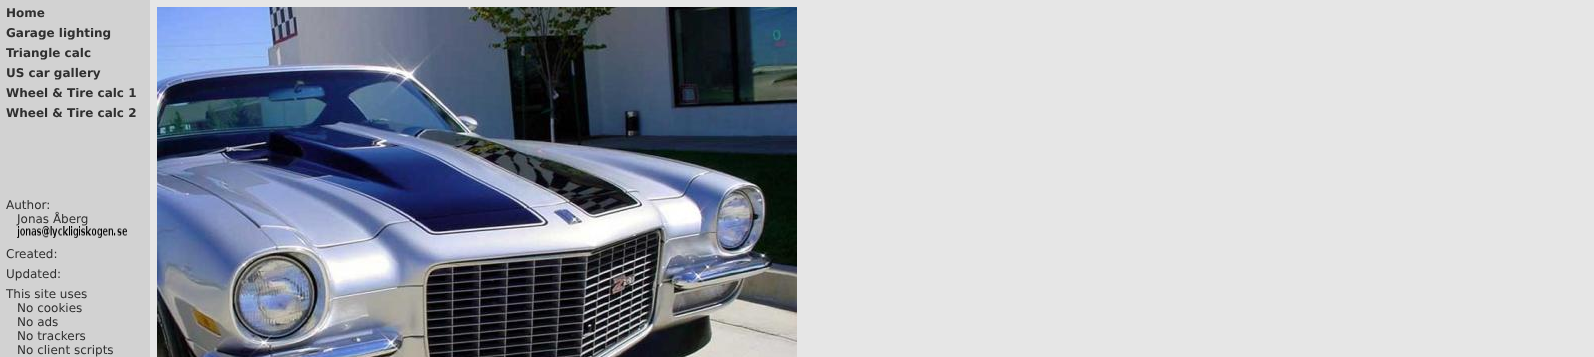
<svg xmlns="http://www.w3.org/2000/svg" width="1594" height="357">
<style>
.a{font:bold 12px DejaVu Sans;fill:#303030}
.b{font:12px DejaVu Sans;fill:#303030}
</style>
<rect width="100%" height="100%" fill="#e6e6e6"/>
<path fill="#d2d2d2" d="M0 0h150v357H0z"/>
<image href="1.png" x="157" y="7" width="640" height="350"/>
<image href="2.png" x="17" y="226" width="110" height="12"/>
<text class="a" x="6" y="17">Home</text>
<text class="a" x="6" y="37">Garage lighting</text>
<text class="a" x="6" y="57">Triangle calc</text>
<text class="a" x="6" y="77">US car gallery</text>
<text class="a" x="6" y="97">Wheel &amp; Tire calc 1</text>
<text class="a" x="6" y="117">Wheel &amp; Tire calc 2</text>
<text class="b" x="6" y="209">Author:</text>
<text class="b" x="17" y="223">Jonas Åberg</text>
<text class="b" x="6" y="258">Created:</text>
<text class="b" x="6" y="278">Updated:</text>
<text class="b" x="6" y="298">This site uses</text>
<text class="b" x="17" y="312">No cookies</text>
<text class="b" x="17" y="326">No ads</text>
<text class="b" x="17" y="340">No trackers</text>
<text class="b" x="17" y="354">No client scripts</text>
</svg>
